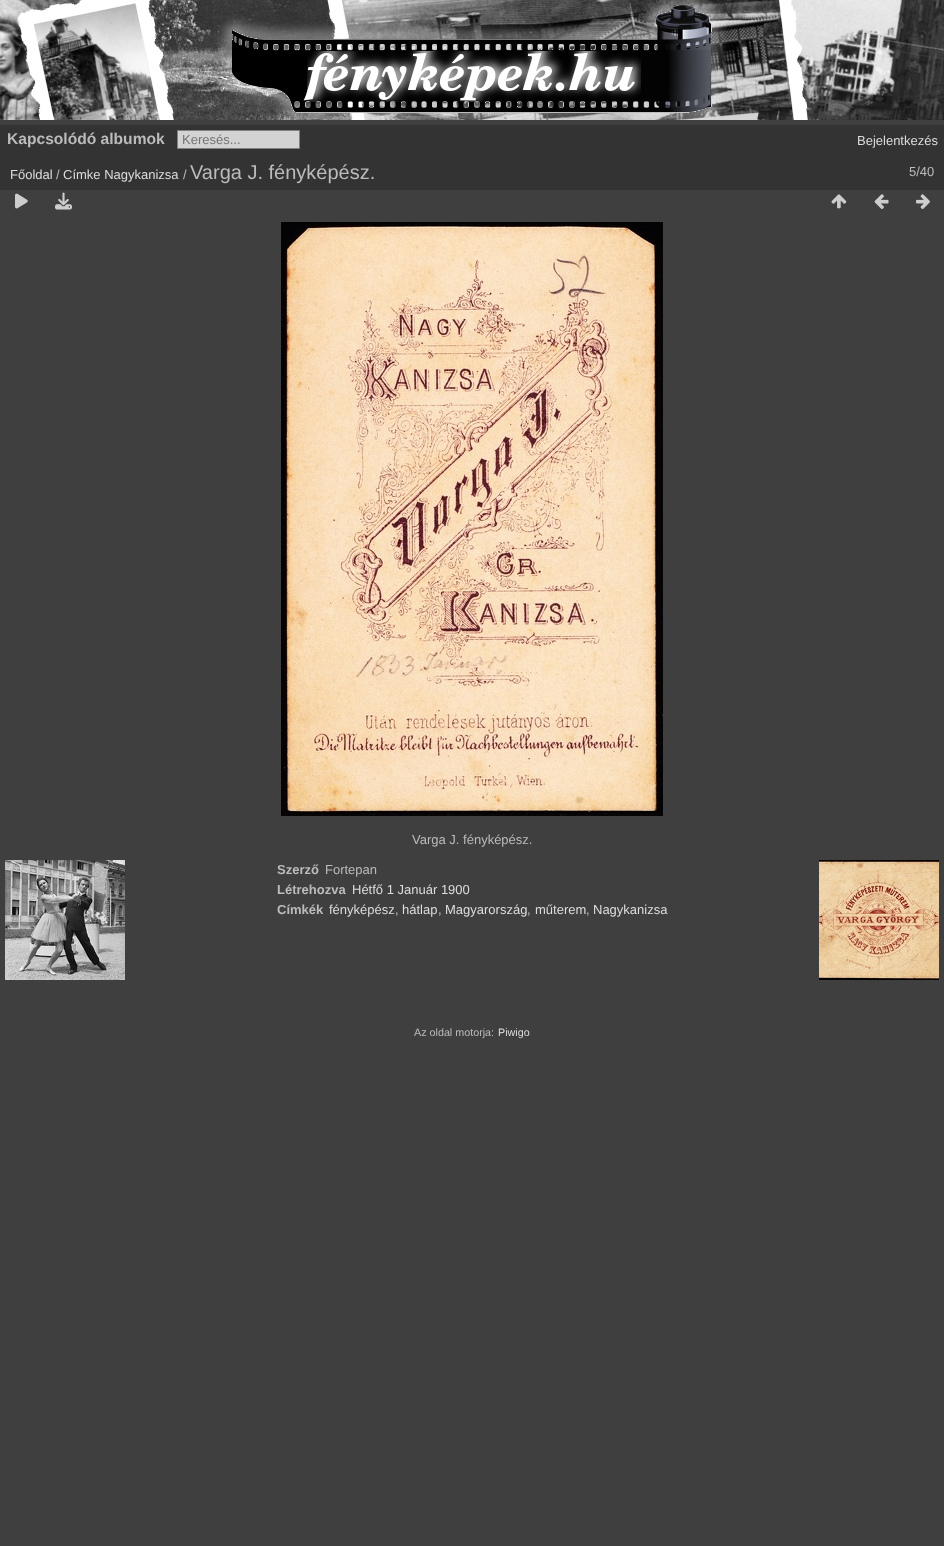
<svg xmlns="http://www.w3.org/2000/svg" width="944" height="1546">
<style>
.a{font:bold 15.6px Liberation Sans;fill:#bbb}
.b{font:13px Liberation Sans;fill:#757575}
.c{font:13px Liberation Sans;fill:#ddd}
.d{font:13px Liberation Sans;fill:#bbb}
.e{font:20px Liberation Sans;fill:#bbb}
.f{font:bold 13px Liberation Sans;fill:#bbb}
.g{font:10.75px Liberation Sans;fill:#bbb}
.h{font:10.75px Liberation Sans;fill:#ddd}
</style>
<rect width="100%" height="100%" fill="#3f3f3f"/>
<path fill="#d4d4d4" d="M0 111h762v9H0z"/>
<image href="1.png" x="0" y="0" width="944" height="120"/>
<path fill="#333" d="M0 125h944v65H0z"/>
<path fill="#d3d3d3" stroke="#808080" d="M177.5 130.5h122v18H177.5z"/>
<image href="2.png" x="15" y="193" width="13" height="16"/>
<image href="3.png" x="55" y="192" width="17" height="18"/>
<image href="4.png" x="831" y="194" width="16" height="15"/>
<image href="5.png" x="874" y="194" width="15" height="15"/>
<image href="6.png" x="916" y="194" width="14" height="15"/>
<image href="7.png" x="281" y="222" width="382" height="594"/>
<image href="8.png" x="5" y="860" width="120" height="120"/>
<image href="9.png" x="819" y="860" width="120" height="120"/>
<text class="a" x="7" y="144">Kapcsolódó albumok</text>
<text class="b" x="182" y="144">Keresés...</text>
<text class="c" x="857" y="145">Bejelentkezés</text>
<text class="c" x="10" y="179">Főoldal</text>
<text class="d" x="56" y="179">/</text>
<text class="c" x="63" y="179">Címke Nagykanizsa</text>
<text class="d" x="183" y="179">/</text>
<text class="e" x="190" y="179">Varga J. fényképész.</text>
<text class="d" x="909" y="176">5/40</text>
<text class="d" x="412" y="844">Varga J. fényképész.</text>
<text class="f" x="277" y="874">Szerző</text>
<text class="d" x="325" y="874">Fortepan</text>
<text class="f" x="277" y="894">Létrehozva</text>
<text class="c" x="352" y="894">Hétfő 1 Január 1900</text>
<text class="f" x="277" y="914">Címkék</text>
<text class="c" x="329" y="914">fényképész</text>
<text class="d" x="395" y="914">,</text>
<text class="c" x="402" y="914">hátlap</text>
<text class="d" x="438" y="914">,</text>
<text class="c" x="445" y="914">Magyarország</text>
<text class="d" x="527" y="914">,</text>
<text class="c" x="535" y="914">műterem</text>
<text class="d" x="586" y="914">,</text>
<text class="c" x="593" y="914">Nagykanizsa</text>
<text class="g" x="414" y="1036">Az oldal motorja:</text>
<text class="h" x="498" y="1036">Piwigo</text>
</svg>
